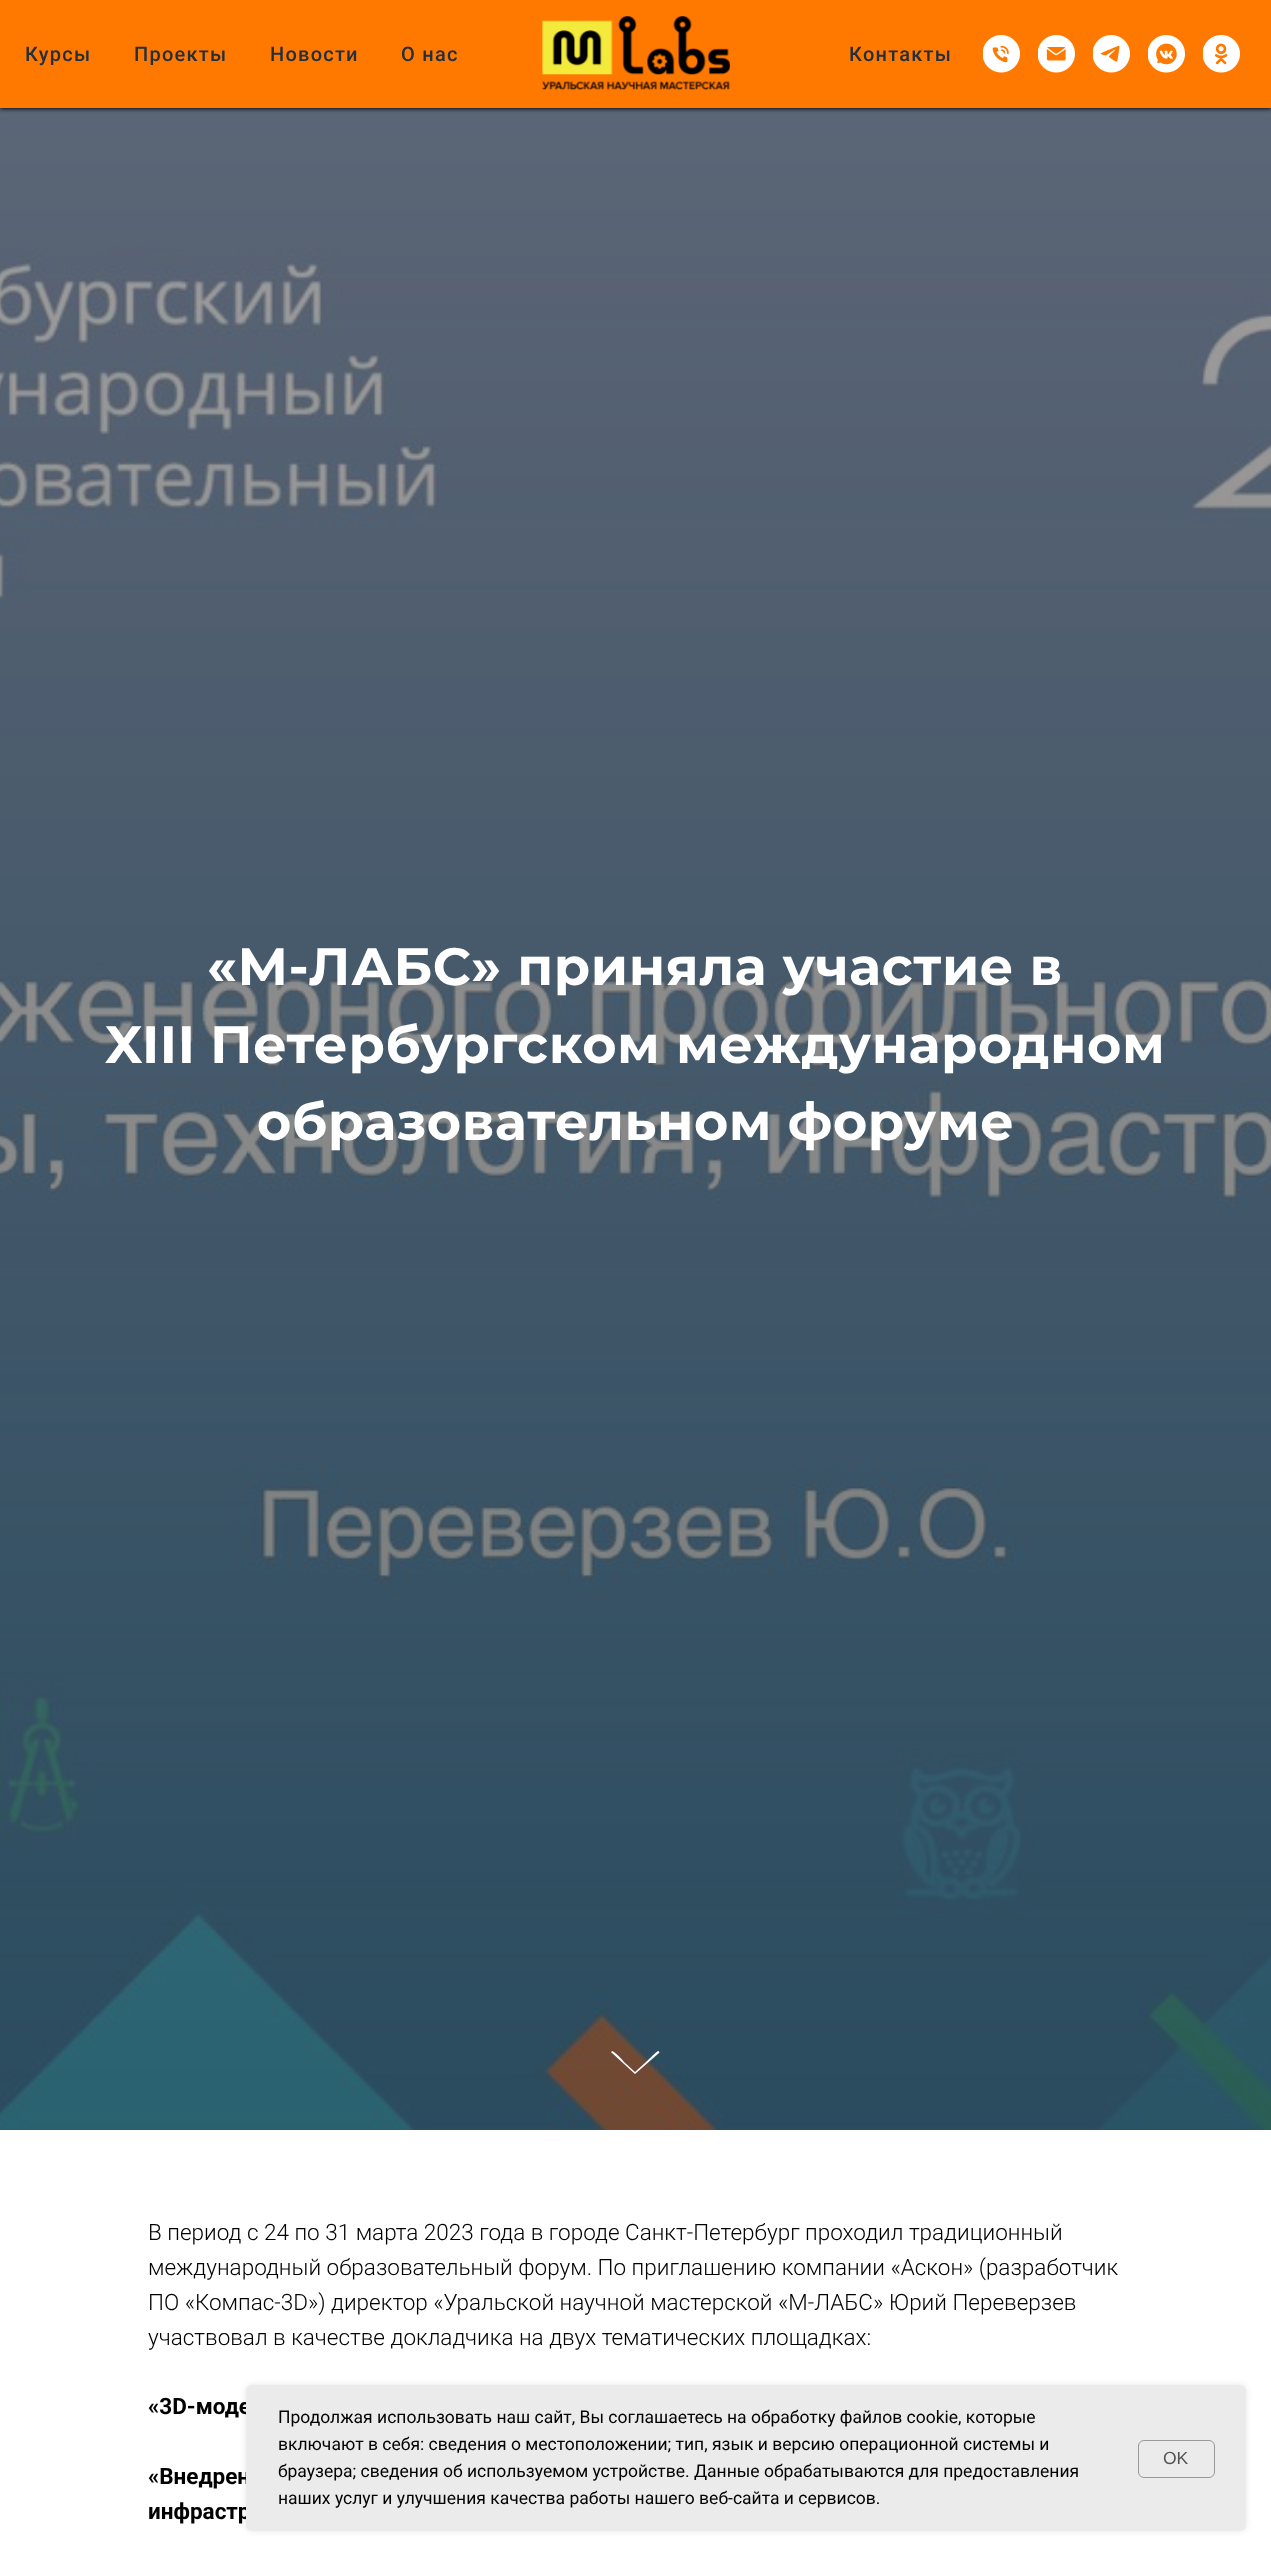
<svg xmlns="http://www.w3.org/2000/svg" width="1271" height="2568">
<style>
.a{font:500 20px Roboto;letter-spacing:1.25px;fill:#252f3b}
.b{font:bold 52.5px Montserrat;letter-spacing:0.6px;fill:#fff}
.c{font:300 22.5px Roboto;fill:#000}
.d{font:bold 22.5px Roboto;fill:#000}
.e{font:17.5px Roboto;fill:#000}
.f{font:17.5px Liberation Sans;fill:#555}
</style>
<rect width="100%" height="100%" fill="#fff"/>
<image href="7.png" x="0" y="108" width="1271" height="2022"/>
<path fill="#000000e6" filter="blur(2px)" d="M0 1h1271v108H0z"/>
<path fill="#ff7900" d="M0 0h1271v108H0z"/>
<image href="1.png" x="542" y="16" width="188" height="74"/>
<image href="2.png" x="983" y="35" width="37" height="38"/>
<image href="3.png" x="1038" y="35" width="37" height="38"/>
<image href="4.png" x="1093" y="35" width="37" height="38"/>
<image href="5.png" x="1148" y="35" width="37" height="38"/>
<image href="6.png" x="1203" y="35" width="37" height="38"/>
<path fill="#fff" d="M635 2074l-23-21c-1 0-1-1 0-2c2 0 11 9 12 11l11 10l11-10c2-2 11-11 12-11c1 0 2 2 1 2z"/>
<rect fill="#0000001a" filter="blur(3px)" x="246" y="2385" width="1000" height="146" rx="6"/>
<text class="a" x="25" y="61">Курсы</text>
<text class="a" x="134" y="61">Проекты</text>
<text class="a" x="270" y="61">Новости</text>
<text class="a" x="401" y="61">О нас</text>
<text class="a" x="849" y="61">Контакты</text>
<text class="b" x="207" y="985">«М-ЛАБС» приняла участие в</text>
<text class="b" x="105" y="1063">XIII</text>
<text class="b" x="210" y="1063">Петербургском международном</text>
<text class="b" x="257" y="1140">образовательном форуме</text>
<text class="c" x="148" y="2240">В период с 24 по 31 марта 2023 года в городе Санкт-Петербург проходил традиционный</text>
<text class="c" x="148" y="2275">международный образовательный форум. По приглашению компании «Аскон» (разработчик</text>
<text class="c" x="148" y="2310">ПО «Компас-3D») директор «Уральской научной мастерской «М-ЛАБС» Юрий Переверзев</text>
<text class="c" x="148" y="2345">участвовал в качестве докладчика на двух тематических площадках:</text>
<text class="d" x="148" y="2414">«3D-моде</text>
<text class="d" x="148" y="2484">«Внедрен</text>
<text class="d" x="148" y="2519">инфрастр</text>
<rect fill="#ebebeb" x="246" y="2385" width="1000" height="146" rx="6"/>
<text class="e" x="278" y="2423">Продолжая использовать наш сайт, Вы соглашаетесь на обработку файлов cookie, которые</text>
<text class="e" x="278" y="2450">включают в себя: сведения о местоположении; тип, язык и версию операционной системы и</text>
<text class="e" x="278" y="2477">браузера; сведения об используемом устройстве. Данные обрабатываются для предоставления</text>
<text class="e" x="278" y="2504">наших услуг и улучшения качества работы нашего веб-сайта и сервисов.</text>
<rect fill="none" stroke="#999" x="1138.5" y="2440.5" width="76" height="37" rx="5.5"/>
<text class="f" x="1163" y="2464">OK</text>
</svg>
